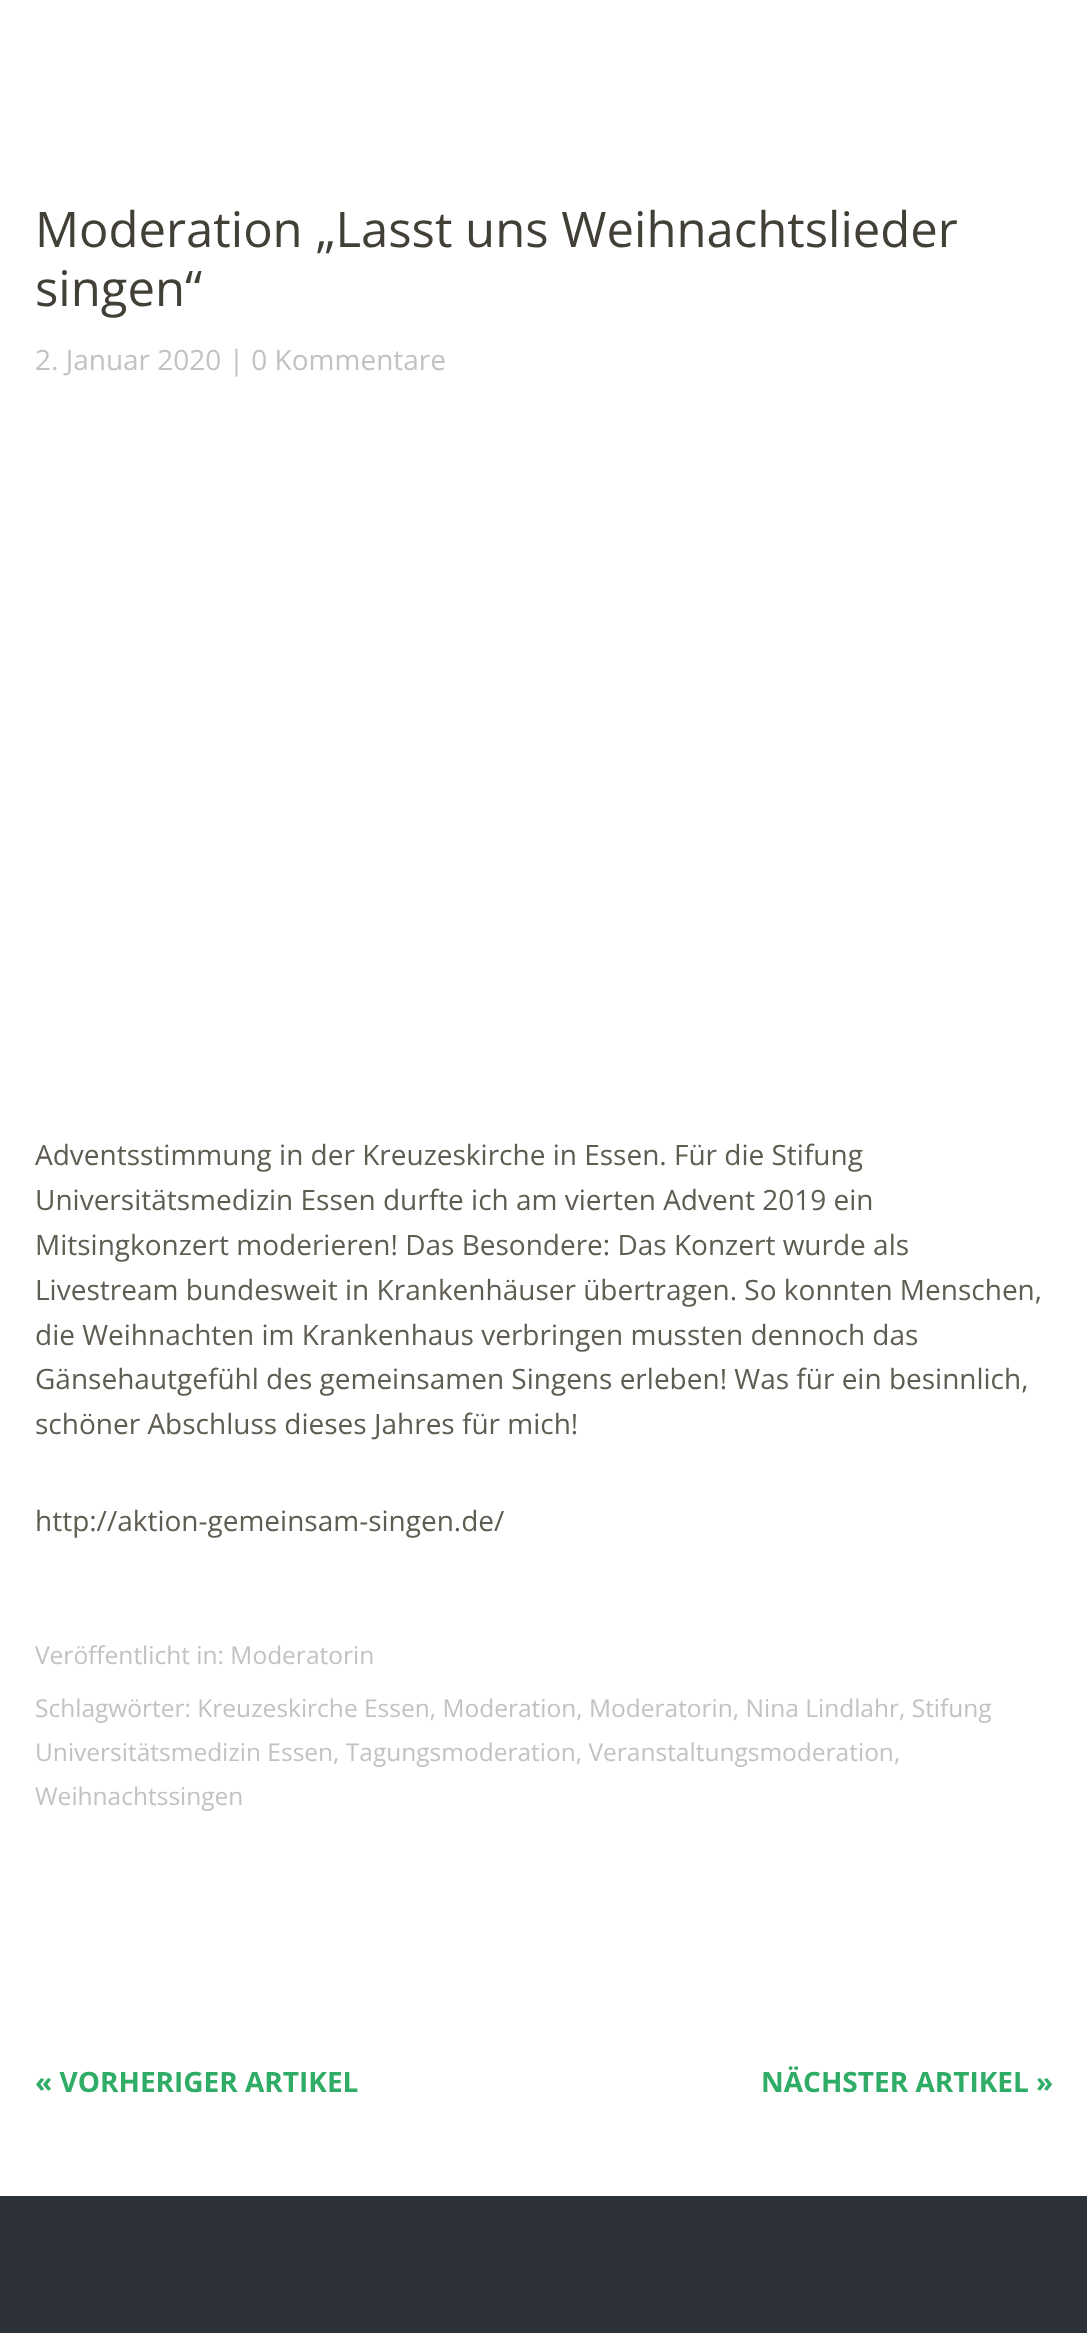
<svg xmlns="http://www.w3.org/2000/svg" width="1087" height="2333">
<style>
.a{font:49px Open Sans;fill:#423f37}
.b{font:28px Open Sans;fill:#c2c2c2}
.c{font:28px Open Sans;fill:#5f5c52}
.d{font:24.5px Open Sans;fill:#c2c2c2}
.e{font:bold 28px Open Sans;fill:#2fac66}
</style>
<rect width="100%" height="100%" fill="#fff"/>
<path fill="#2d3138" d="M0 2196h1087v137H0z"/>
<text class="a" x="35" y="247">Moderation „Lasst uns Weihnachtslieder</text>
<text class="a" x="35" y="306">singen“</text>
<text class="b" x="35" y="370">2. Januar 2020 | 0 Kommentare</text>
<text class="c" x="35" y="1165">Adventsstimmung in der Kreuzeskirche in Essen. Für die Stifung</text>
<text class="c" x="35" y="1210">Universitätsmedizin Essen durfte ich am vierten Advent 2019 ein</text>
<text class="c" x="35" y="1255">Mitsingkonzert moderieren! Das Besondere: Das Konzert wurde als</text>
<text class="c" x="35" y="1300">Livestream bundesweit in Krankenhäuser übertragen. So konnten Menschen,</text>
<text class="c" x="35" y="1345">die Weihnachten im Krankenhaus verbringen mussten dennoch das</text>
<text class="c" x="35" y="1389">Gänsehautgefühl des gemeinsamen Singens erleben! Was für ein besinnlich,</text>
<text class="c" x="35" y="1434">schöner Abschluss dieses Jahres für mich!</text>
<text class="c" x="35" y="1531">http://aktion-gemeinsam-singen.de/</text>
<text class="d" x="35" y="1664">Veröffentlicht in: Moderatorin</text>
<text class="d" x="35" y="1717">Schlagwörter: Kreuzeskirche Essen, Moderation, Moderatorin, Nina Lindlahr, Stifung</text>
<text class="d" x="35" y="1761">Universitätsmedizin Essen, Tagungsmoderation, Veranstaltungsmoderation,</text>
<text class="d" x="35" y="1805">Weihnachtssingen</text>
<text class="e" x="35" y="2092">« VORHERIGER ARTIKEL</text>
<text class="e" x="761" y="2092">NÄCHSTER ARTIKEL »</text>
</svg>
